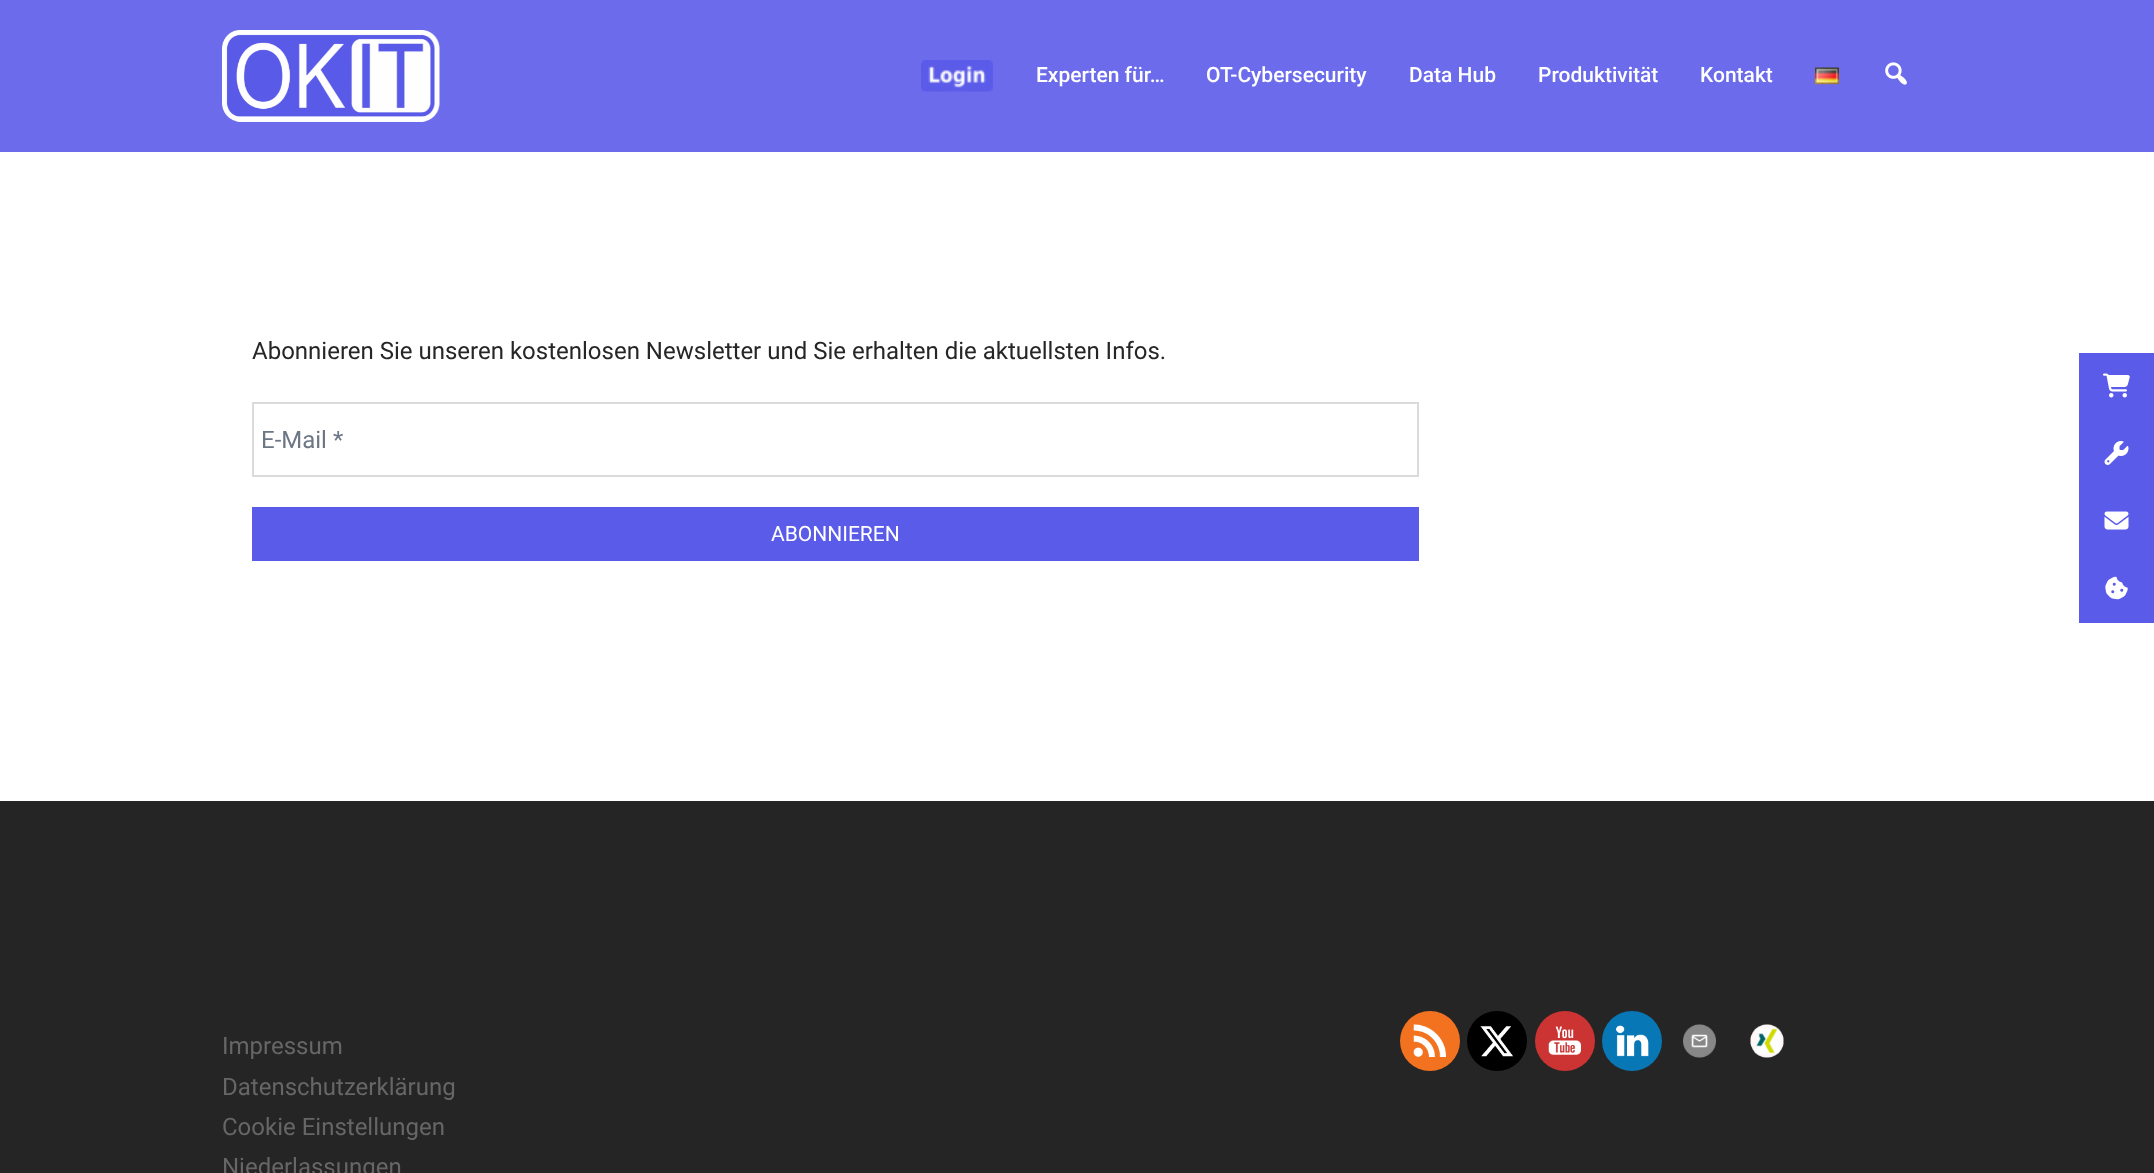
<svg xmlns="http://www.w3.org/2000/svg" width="2154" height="1173">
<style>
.a{font:500 21px Roboto;fill:#fff}
.b{font:24px Roboto;fill:#262626}
.c{font:24px Roboto;fill:#6d7685}
.d{font:21px Roboto;fill:#fff}
.e{font:24px Roboto;fill:#666}
</style>
<rect width="100%" height="100%" fill="#fff"/>
<path fill="#6b6bec" d="M0 0h2154v152H0z"/>
<image href="1.png" x="222" y="30" width="218" height="92"/>
<image href="2.png" x="921" y="60" width="72" height="32"/>
<image href="3.png" x="1815" y="67" width="24" height="18"/>
<image href="4.png" x="1885" y="62" width="22" height="23"/>
<path fill="none" stroke="#dbdbdb" stroke-width="2" d="M253 403h1165v73H253z"/>
<path fill="#5b5bea" d="M252 507h1167v54H252z"/>
<path fill="#252525" d="M0 801h2154v372H0z"/>
<circle fill="#f2721f" cx="1430" cy="1041" r="30"/>
<image href="5.png" x="1413" y="1024" width="33" height="33"/>
<circle fill="#000" cx="1497" cy="1041" r="30"/>
<image href="6.png" x="1480" y="1026" width="33" height="31"/>
<circle fill="#c33" cx="1565" cy="1041" r="30"/>
<image href="7.png" x="1548" y="1026" width="33" height="29"/>
<circle fill="#0877b5" cx="1632" cy="1041" r="30"/>
<image href="8.png" x="1616" y="1025" width="33" height="32"/>
<image href="9.png" x="1683" y="1024" width="33" height="34"/>
<image href="10.png" x="1750" y="1024" width="34" height="34"/>
<path fill="#5b5bea" d="M2079 353h75v270H2079z"/>
<image href="11.png" x="2103" y="373" width="27" height="25"/>
<image href="12.png" x="2104" y="441" width="25" height="24"/>
<image href="13.png" x="2104" y="511" width="25" height="19"/>
<image href="14.png" x="2105" y="576" width="23" height="24"/>
<text class="a" x="1036" y="82">Experten für…</text>
<text class="a" x="1206" y="82">OT-Cybersecurity</text>
<text class="a" x="1409" y="82">Data Hub</text>
<text class="a" x="1538" y="82">Produktivität</text>
<text class="a" x="1700" y="82">Kontakt</text>
<text class="b" x="252" y="359">Abonnieren Sie unseren kostenlosen Newsletter und Sie erhalten die aktuellsten Infos.</text>
<text class="c" x="261" y="448">E-Mail *</text>
<text class="d" x="771" y="541">ABONNIEREN</text>
<text class="e" x="222" y="1054">Impressum</text>
<text class="e" x="222" y="1095">Datenschutzerklärung</text>
<text class="e" x="222" y="1135">Cookie Einstellungen</text>
<text class="e" x="222" y="1175">Niederlassungen</text>
</svg>
